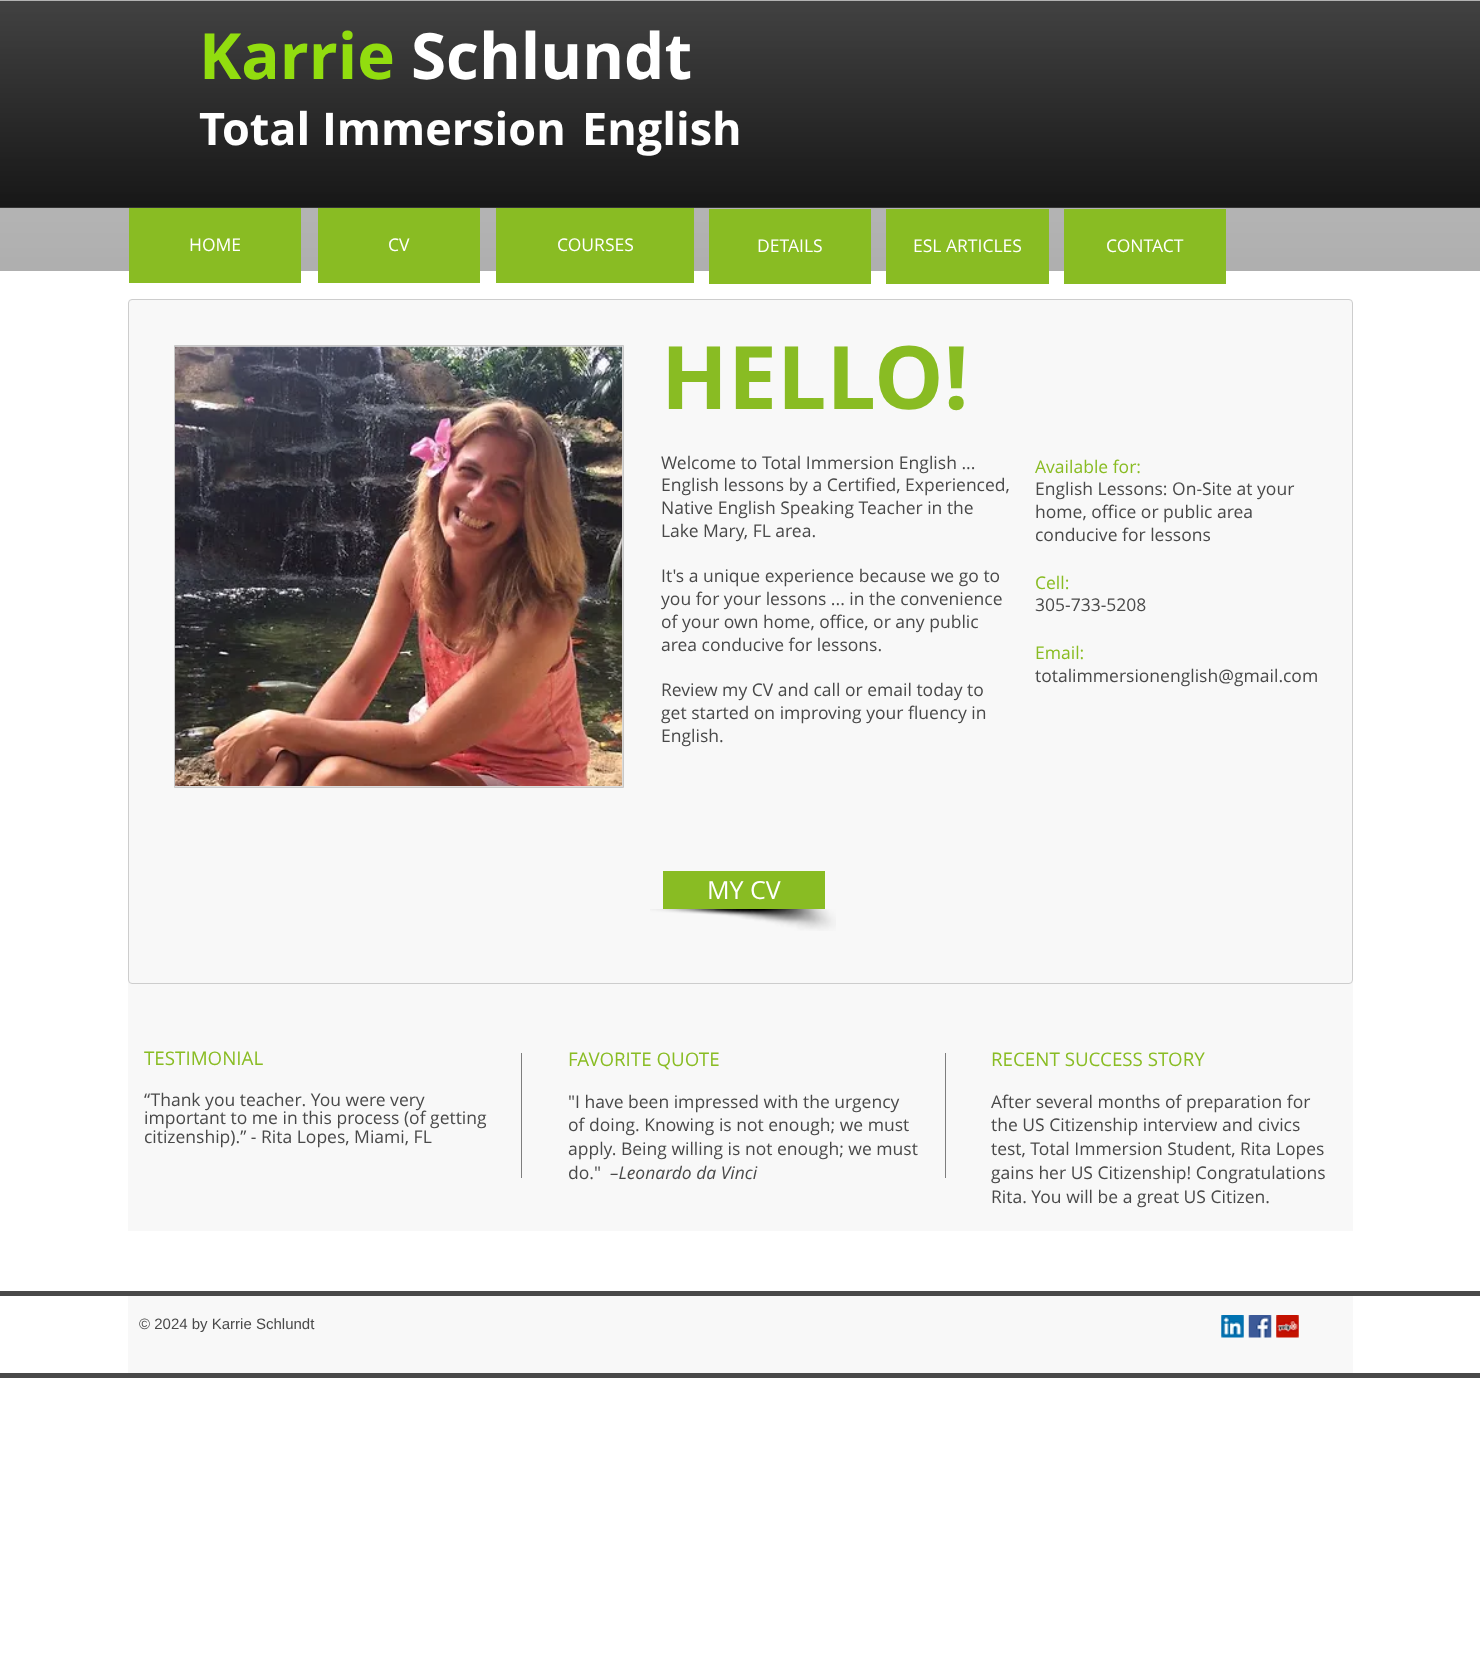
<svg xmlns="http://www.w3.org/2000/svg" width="1480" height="1673">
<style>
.a{font:bold 63.75px Open Sans;fill:#92dd0f}
.b{font:bold 63.75px Open Sans;fill:#fff}
.c{font:bold 45px Open Sans;fill:#fff}
.d{font:17.5px Open Sans;fill:#fff}
.e{font:bold 87.5px Open Sans;fill:#89bc23}
.f{font:17.5px Open Sans;fill:#494949}
.g{font:17.5px Open Sans;fill:#89bc23}
.h{font:25px Open Sans;fill:#fff}
.i{font:18.75px Open Sans;fill:#89bc23}
.j{font:italic 17.5px Open Sans;fill:#494949}
.k{font:15px Liberation Sans;fill:#494949}
</style>
<rect width="100%" height="100%" fill="#fff"/>
<path fill="#000" d="M0 1h1480v207H0z"/>
<image href="1.png" x="0" y="1" width="1480" height="207"/>
<path fill="#b3b3b3" d="M0 0h1480v1H0z"/>
<path fill="#9a9a9a" d="M0 208h1480v63H0z"/>
<image href="2.png" x="0" y="207" width="1480" height="64"/>
<path fill="#89bc23" d="M129 208h172v75H129z"/>
<path fill="#89bc23" d="M318 208h162v75H318z"/>
<path fill="#89bc23" d="M496 208h198v75H496z"/>
<path fill="#89bc23" d="M709 209h162v75H709z"/>
<path fill="#89bc23" d="M886 209h163v75H886z"/>
<path fill="#89bc23" d="M1064 209h162v75H1064z"/>
<path fill="#f8f8f8" d="M128 980h1225v251H128z"/>
<rect fill="#f8f8f8" stroke="#cdcdcd" x="128.5" y="299.5" width="1224" height="684" rx="3.5"/>
<path fill="#dcdcdc" stroke="#c8c8c8" d="M174.5 345.5h449v442H174.5z"/>
<image href="3.png" x="175" y="346" width="448" height="440"/>
<path fill="#89bc23" d="M663 871h162v38H663z"/>
<image href="4.png" x="650" y="909" width="186" height="22"/>
<path fill="#7e7e7e" d="M521 1053h1v125H521z"/>
<path fill="#7e7e7e" d="M945 1053h1v125H945z"/>
<path fill="#494949" d="M0 1291h1480v5H0z"/>
<path fill="#494949" d="M0 1373h1480v5H0z"/>
<path fill="#f8f8f8" d="M128 1296h1225v77H128z"/>
<image href="5.png" x="1221" y="1315" width="23" height="23"/>
<image href="6.png" x="1248" y="1315" width="24" height="23"/>
<image href="7.png" x="1276" y="1315" width="23" height="23"/>
<text class="a" x="199" y="79">Karrie</text>
<text class="b" x="411" y="79">Schlundt</text>
<text class="c" x="199" y="145">Total Immersion</text>
<text class="c" x="582" y="145">English</text>
<text class="d" x="189" y="251">HOME</text>
<text class="d" x="388" y="251">CV</text>
<text class="d" x="557" y="251">COURSES</text>
<text class="d" x="757" y="252">DETAILS</text>
<text class="d" x="913" y="252">ESL ARTICLES</text>
<text class="d" x="1106" y="252">CONTACT</text>
<text class="e" x="661" y="409">HELLO!</text>
<text class="f" x="661" y="469">Welcome to Total Immersion English ...</text>
<text class="f" x="661" y="491">English lessons by a Certified, Experienced,</text>
<text class="f" x="661" y="514">Native English Speaking Teacher in the</text>
<text class="f" x="661" y="537">Lake Mary, FL area.</text>
<text class="f" x="661" y="582">It's a unique experience because we go to</text>
<text class="f" x="661" y="605">you for your lessons ... in the convenience</text>
<text class="f" x="661" y="628">of your own home, office, or any public</text>
<text class="f" x="661" y="651">area conducive for lessons.</text>
<text class="f" x="661" y="696">Review my CV and call or email today to</text>
<text class="f" x="661" y="719">get started on improving your fluency in</text>
<text class="f" x="661" y="742">English.</text>
<text class="g" x="1035" y="473">Available for:</text>
<text class="f" x="1035" y="495">English Lessons: On-Site at your</text>
<text class="f" x="1035" y="518">home, office or public area</text>
<text class="f" x="1035" y="541">conducive for lessons</text>
<text class="g" x="1035" y="589">Cell:</text>
<text class="f" x="1035" y="611">305-733-5208</text>
<text class="g" x="1035" y="659">Email:</text>
<text class="f" x="1035" y="682">totalimmersionenglish@gmail.com</text>
<text class="h" x="707" y="899">MY CV</text>
<text class="i" x="144" y="1065">TESTIMONIAL</text>
<text class="f" x="144" y="1106">“Thank you teacher. You were very</text>
<text class="f" x="144" y="1124">important to me in this process (of getting</text>
<text class="f" x="144" y="1143">citizenship).” - Rita Lopes, Miami, FL</text>
<text class="i" x="568" y="1066">FAVORITE QUOTE</text>
<text class="f" x="568" y="1108">"I have been impressed with the urgency</text>
<text class="f" x="568" y="1131">of doing. Knowing is not enough; we must</text>
<text class="f" x="568" y="1155">apply. Being willing is not enough; we must</text>
<text class="f" x="568" y="1179">do."</text>
<text class="j" x="610" y="1179">–Leonardo da Vinci</text>
<text class="i" x="991" y="1066">RECENT SUCCESS STORY</text>
<text class="f" x="991" y="1108">After several months of preparation for</text>
<text class="f" x="991" y="1131">the US Citizenship interview and civics</text>
<text class="f" x="991" y="1155">test, Total Immersion Student, Rita Lopes</text>
<text class="f" x="991" y="1179">gains her US Citizenship! Congratulations</text>
<text class="f" x="991" y="1203">Rita. You will be a great US Citizen.</text>
<text class="k" x="139" y="1329">© 2024 by Karrie Schlundt</text>
</svg>
